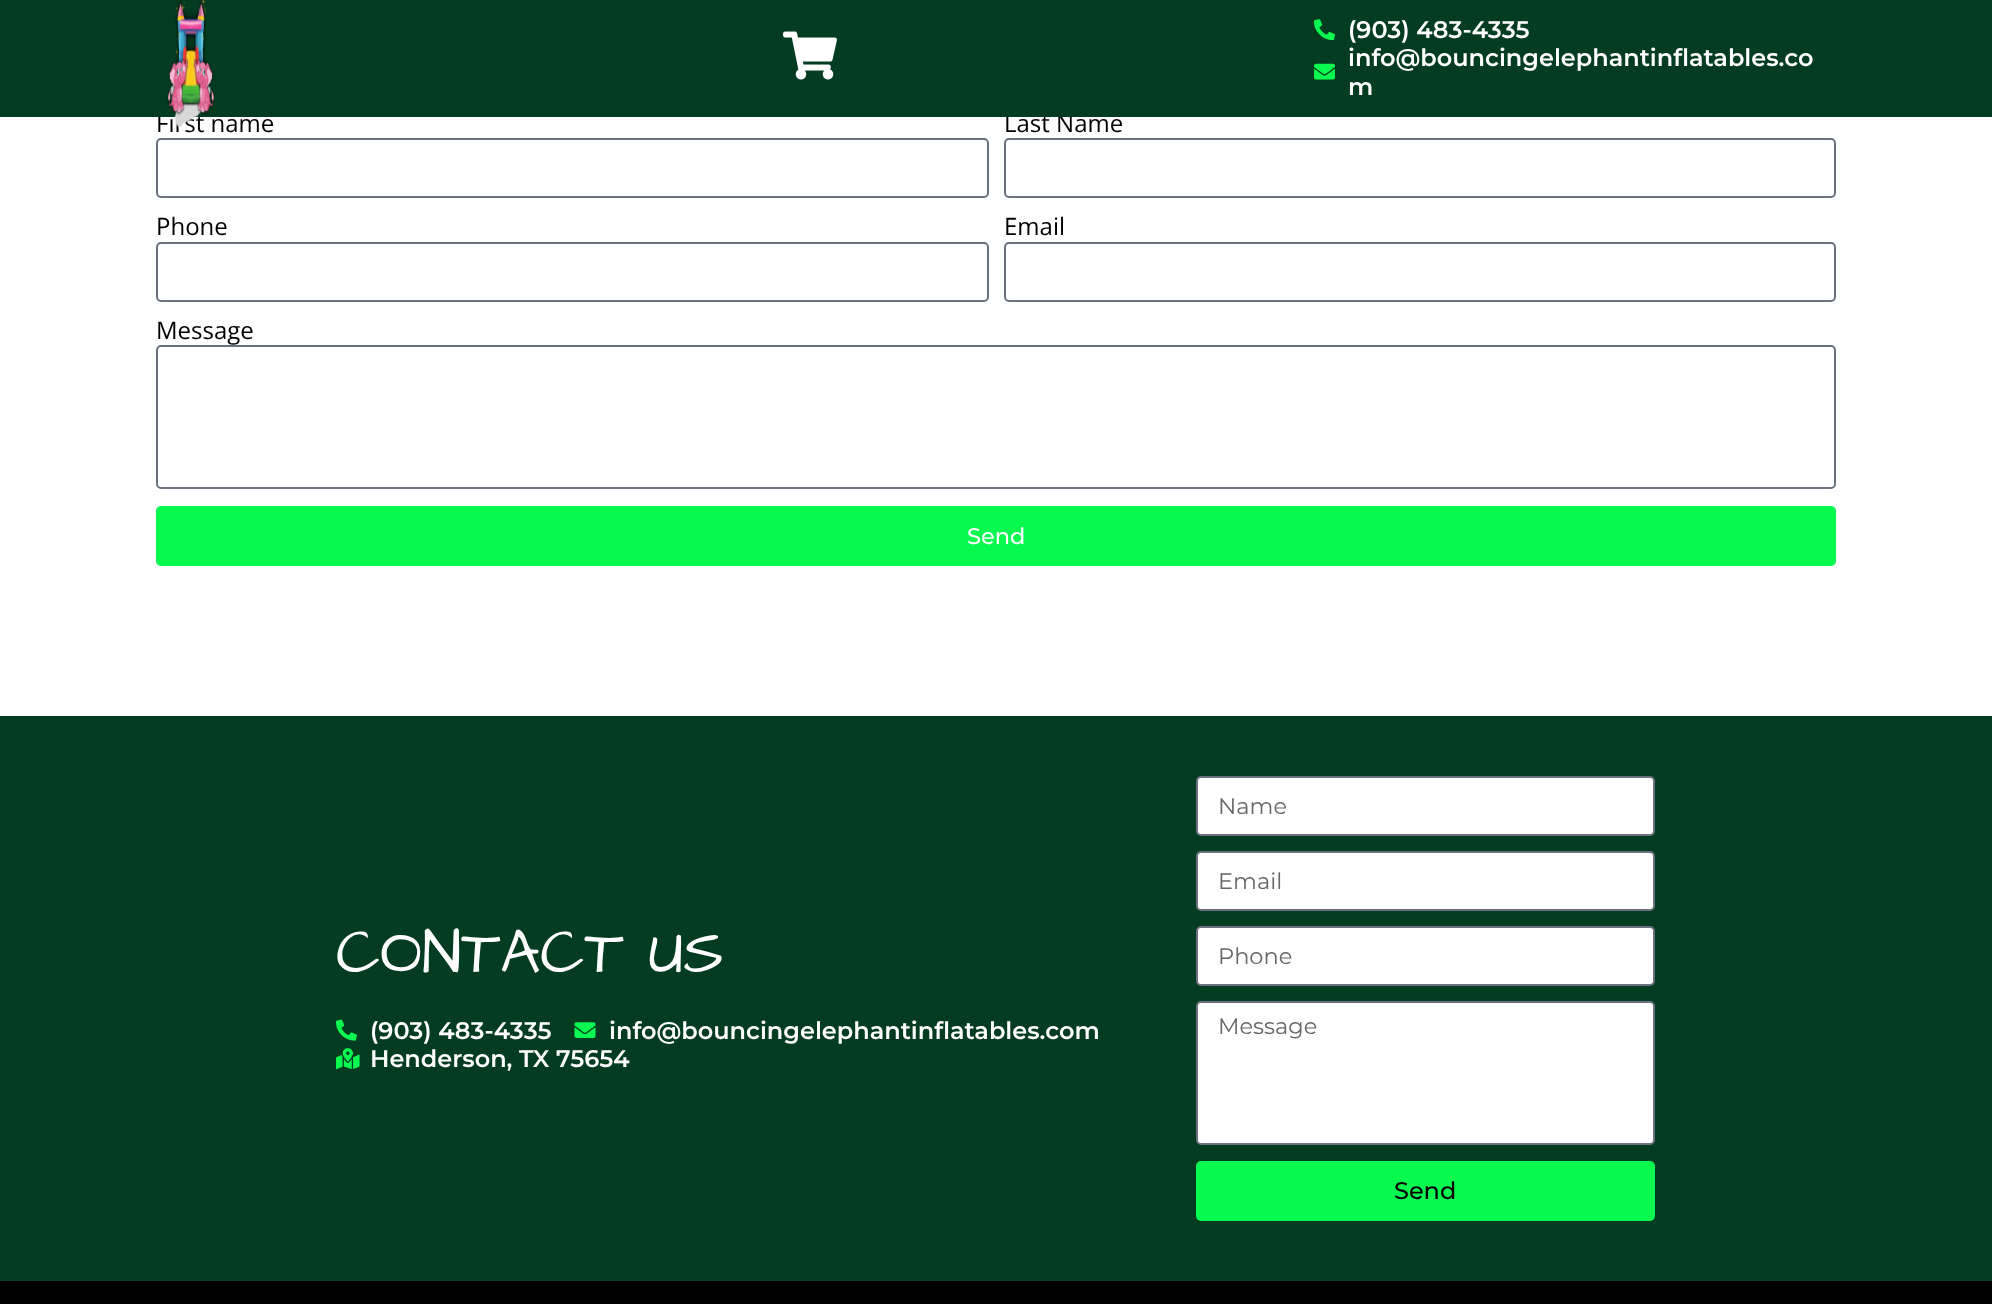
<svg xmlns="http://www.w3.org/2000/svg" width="1992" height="1304">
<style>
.a{font:24px Open Sans;fill:#000}
.b{font:600 24px Montserrat;fill:#fff}
.c{font:500 22.5px Montserrat;fill:#fff}
.d{font:62.5px Architects Daughter;fill:#fff}
.e{font:22.5px Montserrat;fill:#666}
.f{font:500 24px Montserrat;fill:#000}
</style>
<rect width="100%" height="100%" fill="#fff"/>
<rect fill="none" stroke="#69727d" stroke-width="2" x="157" y="139" width="831" height="58" rx="4"/>
<rect fill="none" stroke="#69727d" stroke-width="2" x="1005" y="139" width="830" height="58" rx="4"/>
<rect fill="none" stroke="#69727d" stroke-width="2" x="157" y="243" width="831" height="58" rx="4"/>
<rect fill="none" stroke="#69727d" stroke-width="2" x="1005" y="243" width="830" height="58" rx="4"/>
<rect fill="none" stroke="#69727d" stroke-width="2" x="157" y="346" width="1678" height="142" rx="4"/>
<rect fill="#08f94f" x="156" y="506" width="1680" height="60" rx="5"/>
<path fill="#033c20" d="M0 716h1992v565H0z"/>
<image href="5.png" x="336" y="1019" width="21" height="22"/>
<image href="6.png" x="574" y="1022" width="22" height="16"/>
<image href="7.png" x="336" y="1048" width="24" height="22"/>
<rect fill="#fff" stroke="#69727d" stroke-width="2" x="1197" y="777" width="457" height="58" rx="4"/>
<rect fill="#fff" stroke="#69727d" stroke-width="2" x="1197" y="852" width="457" height="58" rx="4"/>
<rect fill="#fff" stroke="#69727d" stroke-width="2" x="1197" y="927" width="457" height="58" rx="4"/>
<rect fill="#fff" stroke="#69727d" stroke-width="2" x="1197" y="1002" width="457" height="142" rx="4"/>
<rect fill="#08f94f" x="1196" y="1161" width="459" height="60" rx="5"/>
<path fill="#000" d="M0 1281h1992v23H0z"/>
<text class="a" x="156" y="132">First name</text>
<text class="a" x="1004" y="132">Last Name</text>
<path fill="#033c20" d="M0 0h1992v117H0z"/>
<image href="4.png" x="1314" y="63" width="21" height="17"/>
<text class="b" x="1348" y="95">m</text>
<text class="b" x="1348" y="66">info@bouncingelephantinflatables.co</text>
<image href="3.png" x="1314" y="19" width="21" height="22"/>
<text class="b" x="1348" y="38">(903) 483-4335</text>
<image href="2.png" x="783" y="31" width="54" height="49"/>
<image href="1.png" x="167" y="0" width="48" height="128"/>
<text class="a" x="156" y="235">Phone</text>
<text class="a" x="1004" y="235">Email</text>
<text class="a" x="156" y="339">Message</text>
<text class="c" x="967" y="544">Send</text>
<text class="d" x="336" y="972">CONTACT US</text>
<text class="b" x="370" y="1039">(903) 483-4335</text>
<text class="b" x="609" y="1039">info@bouncingelephantinflatables.com</text>
<text class="b" x="370" y="1067">Henderson, TX 75654</text>
<text class="e" x="1218" y="814">Name</text>
<text class="e" x="1218" y="889">Email</text>
<text class="e" x="1218" y="964">Phone</text>
<text class="e" x="1218" y="1034">Message</text>
<text class="f" x="1394" y="1199">Send</text>
</svg>
